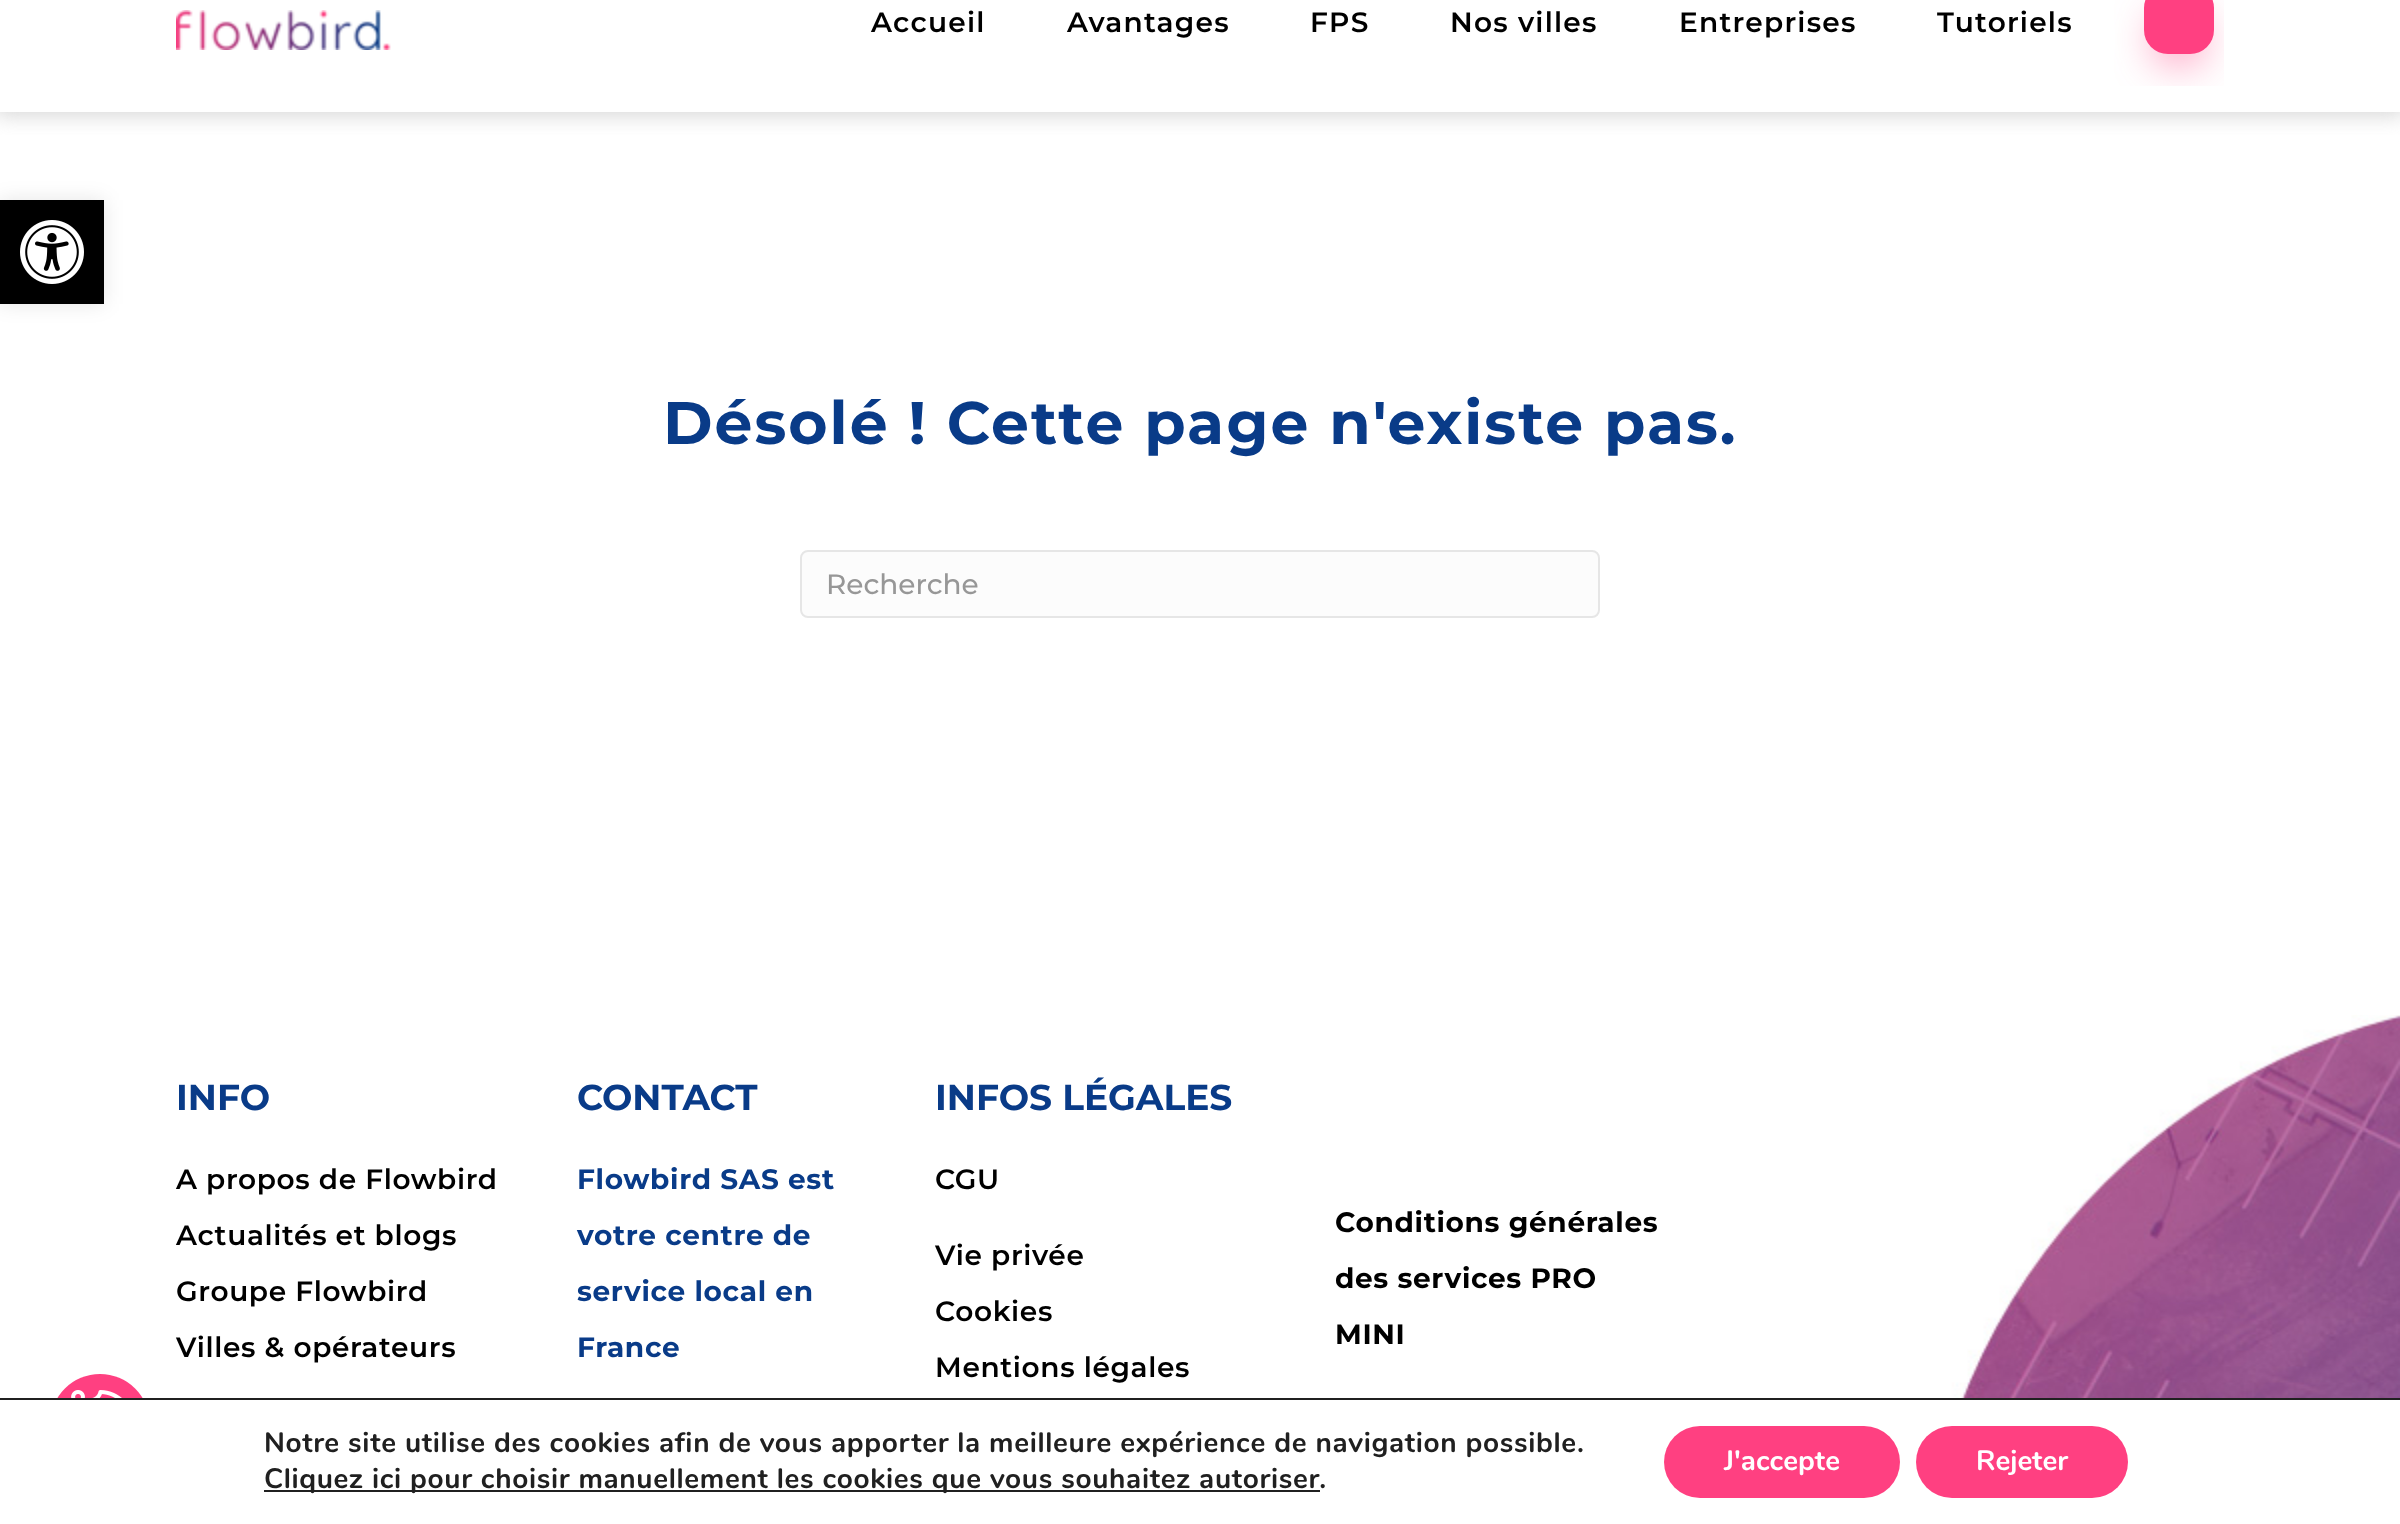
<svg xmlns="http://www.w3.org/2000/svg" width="2400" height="1524">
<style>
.a{font:600 28px Montserrat;letter-spacing:1.25px;fill:#000}
.b{font:bold 60px Montserrat;letter-spacing:2px;fill:#093b88}
.c{font:500 28px Montserrat;fill:#979797}
.d{font:bold 36px Montserrat;fill:#093b88}
.e{font:600 28px Montserrat;letter-spacing:0.66px;fill:#000}
.f{font:bold 28px Montserrat;letter-spacing:0.66px;fill:#093b88}
.g{font:bold 28px Montserrat;letter-spacing:0.66px;fill:#000}
.h{font:bold 28px Nunito;letter-spacing:0.66px;fill:#202020}
.i{font:bold 28px Nunito;fill:#fff}
</style>
<defs>
<clipPath id="clip1"><path d="M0 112h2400v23H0z"/></clipPath>
<clipPath id="clip2"><path d="M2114 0h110v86H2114z"/></clipPath>
</defs>
<rect width="100%" height="100%" fill="#fff"/>
<path fill="#0000001a" filter="blur(10px)" d="M0 200h104v104H0z"/>
<path fill="#000" d="M0 200h104v104H0z"/>
<image href="1.png" x="20" y="220" width="64" height="64"/>
<g clip-path="url(#clip1)">
<path fill="#c8c8c8b3" filter="blur(10px)" d="M-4 -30h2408v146H-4z"/>
</g>
<image href="2.png" x="176" y="10" width="215" height="40"/>
<g clip-path="url(#clip2)">
<rect fill="#ff408180" filter="blur(20px)" x="2154" y="14" width="50" height="50" rx="14"/>
</g>
<rect fill="#ff4081" x="2144" y="-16" width="70" height="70" rx="24"/>
<rect fill="#fcfcfc" stroke="#e6e6e6" stroke-width="2" x="801" y="551" width="798" height="66" rx="7"/>
<image href="3.png" x="1920" y="1015" width="480" height="383"/>
<circle fill="#ff4081" cx="100" cy="1424" r="50"/>
<image href="4.png" x="71" y="1390" width="51" height="8"/>
<path fill="#fff" d="M50 1400h100v74H50z"/>
<path fill="#202020" d="M0 1398h2400v2H0z"/>
<path fill="#202020" d="M264 1490h1056v2H264z"/>
<rect fill="#ff4081" x="1664" y="1426" width="236" height="72" rx="36"/>
<rect fill="#ff4081" x="1916" y="1426" width="212" height="72" rx="36"/>
<text class="a" x="871" y="32">Accueil</text>
<text class="a" x="1067" y="32">Avantages</text>
<text class="a" x="1310" y="32">FPS</text>
<text class="a" x="1450" y="32">Nos villes</text>
<text class="a" x="1679" y="32">Entreprises</text>
<text class="a" x="1937" y="32">Tutoriels</text>
<text class="b" x="663" y="444">Désolé ! Cette page n'existe pas.</text>
<text class="c" x="826" y="594">Recherche</text>
<text class="d" x="176" y="1110">INFO</text>
<text class="e" x="176" y="1189">A propos de Flowbird</text>
<text class="e" x="176" y="1245">Actualités et blogs</text>
<text class="e" x="176" y="1301">Groupe Flowbird</text>
<text class="e" x="176" y="1357">Villes &amp; opérateurs</text>
<text class="d" x="577" y="1110">CONTACT</text>
<text class="f" x="577" y="1189">Flowbird SAS est</text>
<text class="f" x="577" y="1245">votre centre de</text>
<text class="f" x="577" y="1301">service local en</text>
<text class="f" x="577" y="1357">France</text>
<text class="d" x="935" y="1110">INFOS LÉGALES</text>
<text class="e" x="935" y="1189">CGU</text>
<text class="e" x="935" y="1265">Vie privée</text>
<text class="e" x="935" y="1321">Cookies</text>
<text class="e" x="935" y="1377">Mentions légales</text>
<text class="g" x="1335" y="1232">Conditions générales</text>
<text class="g" x="1335" y="1288">des services PRO</text>
<text class="g" x="1335" y="1344">MINI</text>
<text class="h" x="264" y="1452">Notre site utilise des cookies afin de vous apporter la meilleure expérience de navigation possible.</text>
<text class="h" x="264" y="1488">Cliquez ici pour choisir manuellement les cookies que vous souhaitez autoriser.</text>
<text class="i" x="1724" y="1470">J'accepte</text>
<text class="i" x="1976" y="1470">Rejeter</text>
</svg>
